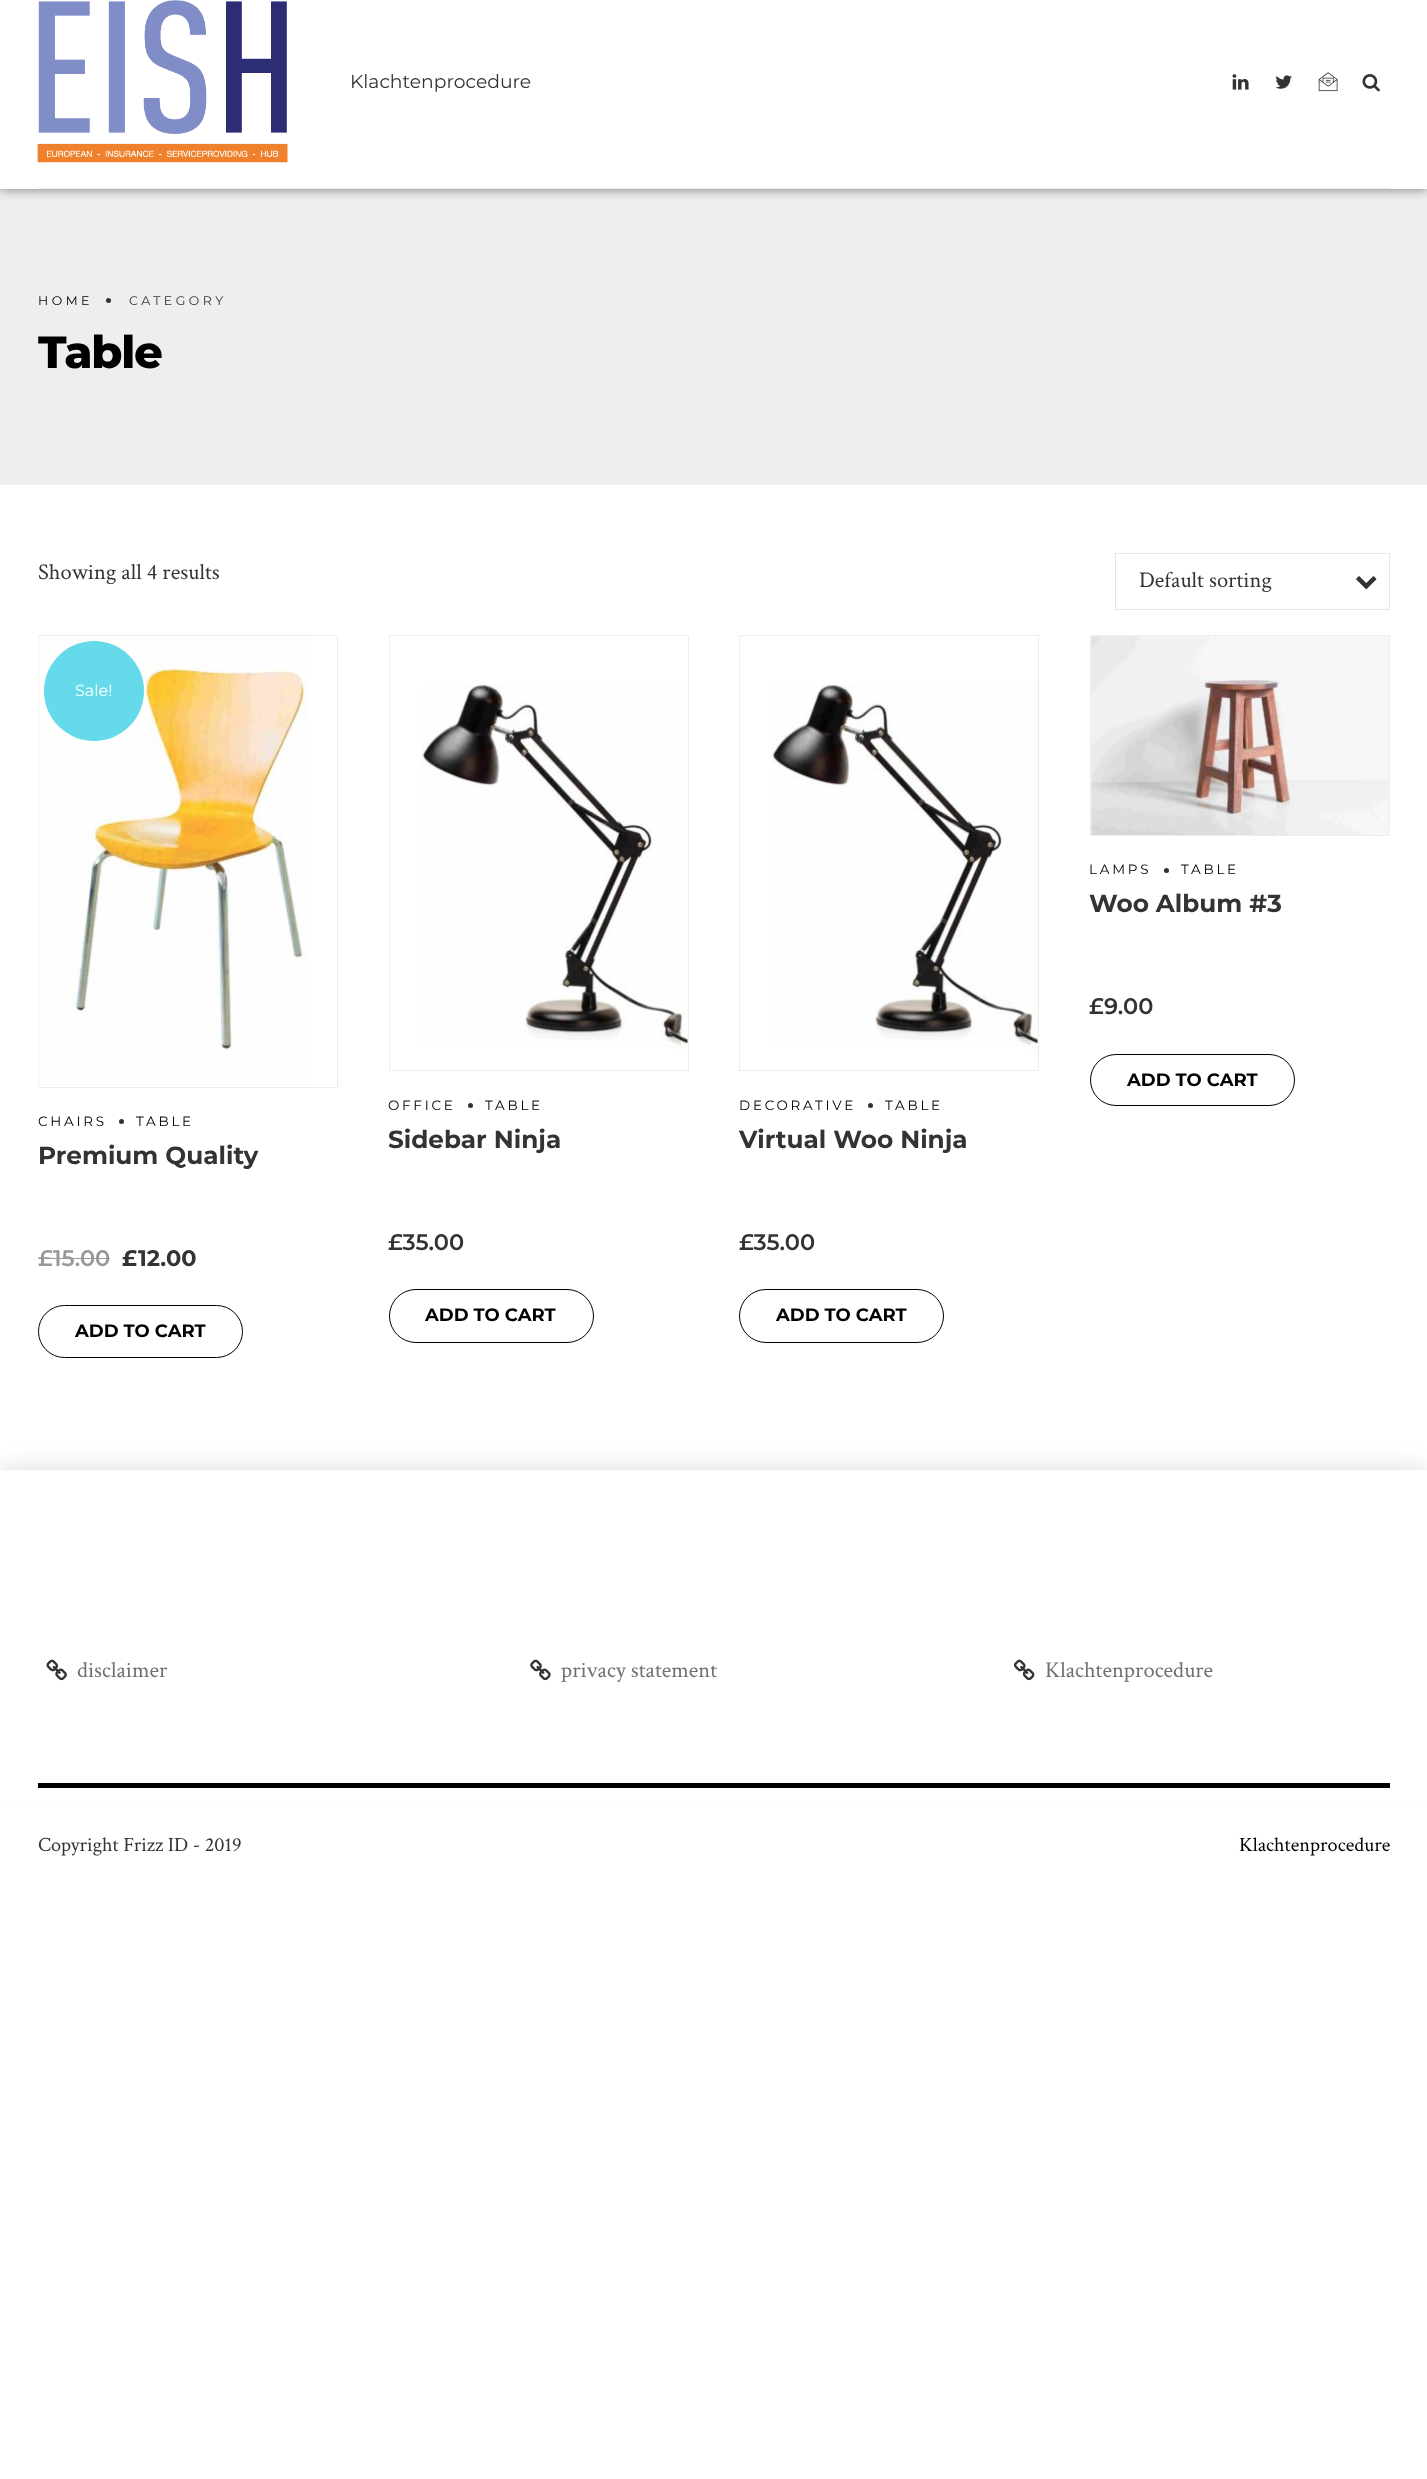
<svg xmlns="http://www.w3.org/2000/svg" width="1427" height="2479">
<style>
.a{font:18.75px Montserrat;fill:#333}
.b{font:12.5px Montserrat;letter-spacing:3.5px;fill:#000}
.c{font:12.5px Montserrat;letter-spacing:3.5px;fill:#333}
.d{font:800 45px Montserrat;letter-spacing:-1.25px;fill:#000}
.e{font:22.5px Crimson Text;fill:#333}
.f{font:16px Montserrat;fill:#fff}
.g{font:13.5px Montserrat;letter-spacing:2.75px;fill:#000}
.h{font:bold 24.75px Montserrat;fill:#333}
.i{font:600 22.5px Montserrat;fill:#999}
.j{font:bold 22.5px Montserrat;fill:#333}
.k{font:bold 18px Montserrat;fill:#000}
.l{font:600 22.5px Montserrat;fill:#333}
.m{font:22.5px Crimson Text;fill:#707070}
.n{font:20.25px Crimson Text;fill:#333}
.o{font:20.25px Crimson Text;fill:#000}
</style>
<rect width="100%" height="100%" fill="#fff"/>
<path fill="#eee" d="M0 189h1427v296H0z"/>
<path fill="#00000080" filter="blur(6px)" d="M0 -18h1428v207H0z"/>
<path fill="#fff" d="M0 0h1427v189H0z"/>
<path fill="#ededed" d="M38 188h1352v1H38z"/>
<image href="1.png" x="37" y="0" width="251" height="163"/>
<image href="2.png" x="1232" y="74" width="17" height="16"/>
<image href="3.png" x="1275" y="75" width="17" height="14"/>
<image href="4.png" x="1318" y="72" width="20" height="20"/>
<image href="5.png" x="1362" y="74" width="18" height="18"/>
<circle fill="#333" cx="108.5" cy="300.5" r="2.5"/>
<path fill="none" stroke="#e6e6e6" d="M1115.5 553.5h274v56H1115.5z"/>
<image href="6.png" x="1356" y="576" width="21" height="14"/>
<path fill="none" stroke="#ededed" d="M38.5 635.5h299v452H38.5z"/>
<image href="7.png" x="38" y="637" width="271" height="449"/>
<circle fill="#24cae2b3" cx="94" cy="691" r="50"/>
<circle fill="#333" cx="121.5" cy="1121.5" r="2.5"/>
<path fill="#999" d="M38 1258h15v1H38z"/>
<path fill="#999" d="M53 1258h57v1H53z"/>
<rect fill="none" stroke="#000" x="38.5" y="1305.5" width="204" height="52" rx="26"/>
<path fill="none" stroke="#ededed" d="M1090.5 635.5h299v200H1090.5z"/>
<image href="8.png" x="1091" y="636" width="298" height="199"/>
<circle fill="#333" cx="1166.5" cy="870.5" r="2.5"/>
<rect fill="none" stroke="#000" x="1090.5" y="1054.5" width="204" height="51" rx="25.5"/>
<path fill="none" stroke="#ededed" d="M389.5 635.5h299v435H389.5z"/>
<image href="9.png" x="422" y="684" width="266" height="365"/>
<circle fill="#333" cx="470.5" cy="1105.5" r="2.5"/>
<rect fill="none" stroke="#000" x="389.5" y="1289.5" width="204" height="53" rx="26.5"/>
<path fill="none" stroke="#ededed" d="M739.5 635.5h299v435H739.5z"/>
<image href="9.png" x="772" y="684" width="266" height="365"/>
<circle fill="#333" cx="870.5" cy="1105.5" r="2.5"/>
<rect fill="none" stroke="#000" x="739.5" y="1289.5" width="204" height="53" rx="26.5"/>
<path fill="#00000026" filter="blur(12.5px)" d="M0 1470h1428v313H0z"/>
<path fill="#fff" d="M0 1470h1427v332H0z"/>
<image href="10.png" x="46" y="1659" width="21" height="22"/>
<image href="11.png" x="530" y="1659" width="21" height="22"/>
<image href="12.png" x="1014" y="1659" width="21" height="22"/>
<path fill="#000" d="M38 1783h1352v5H38z"/>
<text class="a" x="350" y="88">Klachtenprocedure</text>
<text class="b" x="38" y="305">HOME</text>
<text class="c" x="129" y="305">CATEGORY</text>
<text class="d" x="38" y="368">Table</text>
<text class="e" x="38" y="579">Showing all 4 results</text>
<text class="e" x="1139" y="587">Default sorting</text>
<text class="f" x="75" y="696">Sale!</text>
<text class="g" x="38" y="1126">CHAIRS</text>
<text class="g" x="136" y="1126">TABLE</text>
<text class="h" x="38" y="1164">Premium Quality</text>
<text class="i" x="38" y="1266">£</text>
<text class="i" x="53" y="1266">15.00</text>
<text class="j" x="122" y="1266">£</text>
<text class="j" x="138" y="1266">12.00</text>
<text class="k" x="75" y="1337">ADD TO CART</text>
<text class="g" x="1089" y="874">LAMPS</text>
<text class="g" x="1181" y="874">TABLE</text>
<text class="h" x="1089" y="912">Woo Album #3</text>
<text class="l" x="1089" y="1014">£</text>
<text class="l" x="1104" y="1014">9.00</text>
<text class="k" x="1127" y="1086">ADD TO CART</text>
<text class="g" x="388" y="1110">OFFICE</text>
<text class="g" x="485" y="1110">TABLE</text>
<text class="h" x="388" y="1148">Sidebar Ninja</text>
<text class="l" x="388" y="1250">£35.00</text>
<text class="k" x="425" y="1321">ADD TO CART</text>
<text class="g" x="739" y="1110">DECORATIVE</text>
<text class="g" x="885" y="1110">TABLE</text>
<text class="h" x="739" y="1148">Virtual Woo Ninja</text>
<text class="l" x="739" y="1250">£35.00</text>
<text class="k" x="776" y="1321">ADD TO CART</text>
<text class="m" x="77" y="1677">disclaimer</text>
<text class="m" x="561" y="1677">privacy statement</text>
<text class="m" x="1045" y="1677">Klachtenprocedure</text>
<text class="n" x="38" y="1851">Copyright Frizz ID - 2019</text>
<text class="o" x="1239" y="1851">Klachtenprocedure</text>
</svg>
